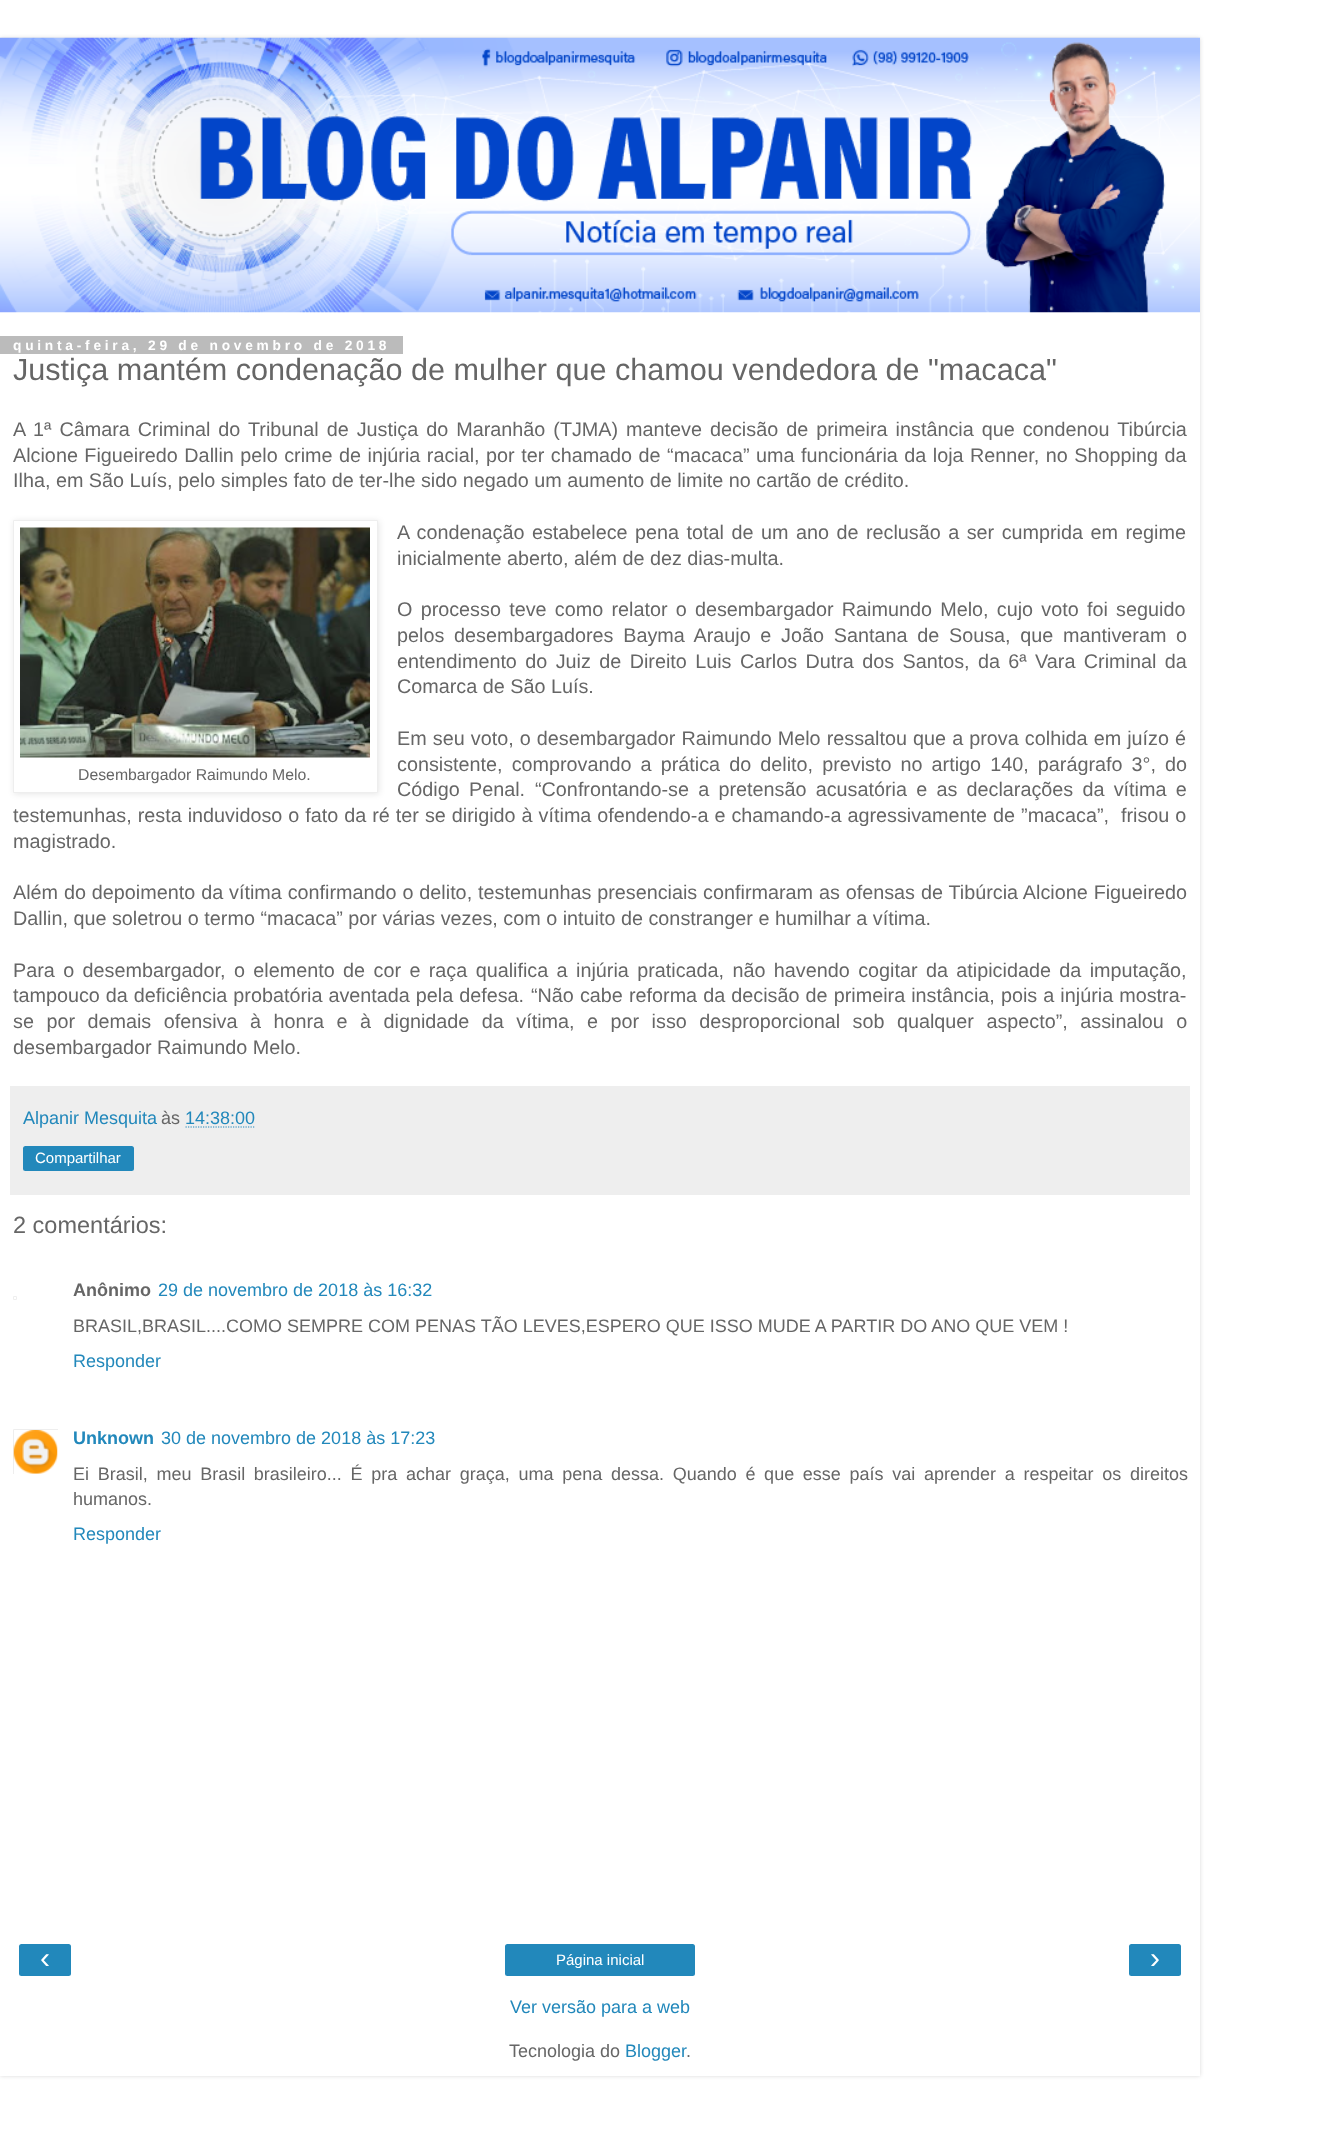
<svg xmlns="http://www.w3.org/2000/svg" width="1321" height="2149">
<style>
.a{font:bold 13.75px Liberation Sans;letter-spacing:3.75px;fill:#fff}
.b{font:30.6px Liberation Sans;fill:#666}
.c{font:19.8px Liberation Sans;fill:#666}
.d{font:15.8px Liberation Sans;fill:#666}
.e{font:18px Liberation Sans;fill:#28b}
.f{font:18px Liberation Sans;fill:#666}
.g{font:15px Liberation Sans;fill:#fff}
.h{font:23.5px Liberation Sans;fill:#666}
.i{font:bold 18px Liberation Sans;fill:#666}
.j{font:bold 18px Liberation Sans;fill:#28b}
.k{font:30px Liberation Sans;fill:#fff}
</style>
<defs>
<clipPath id="clip1"><path d="M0 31h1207v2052h-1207zm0 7h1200v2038h-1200z" clip-rule="evenodd"/></clipPath>
<clipPath id="clip2"><path d="M13 1429h45v45H13z"/></clipPath>
</defs>
<rect width="100%" height="100%" fill="#fff"/>
<g clip-path="url(#clip1)">
<path fill="#00000026" filter="blur(2px)" d="M0 38h1200v2038H0z"/>
</g>
<image href="1.png" x="0" y="37" width="1200" height="276"/>
<path fill="#bbb" d="M0 336h403v18H0z"/>
<path fill="#0000001a" filter="blur(3px)" d="M14 521h365v273H14z"/>
<path fill="#fff" stroke="#eee" d="M13.5 520.5h364v272H13.5z"/>
<image href="2.png" x="20" y="527" width="350" height="231"/>
<path fill="#eee" d="M10 1086h1180v109H10z"/>
<path fill="none" stroke="#28b" stroke-width="1.2" stroke-dasharray="1.25 1.25" d="M185.5 1127h70"/>
<rect fill="#28b" x="23" y="1146" width="111" height="25" rx="2.5"/>
<path fill="none" stroke="#eee" d="M13.5 1296.5h3v3H13.5z"/>
<g clip-path="url(#clip2)">
<path fill="none" stroke="#eee" d="M13.5 1429.5h45v45H13.5z"/>
</g>
<image href="3.png" x="13" y="1430" width="45" height="44"/>
<rect fill="#28b" x="19" y="1944" width="52" height="32" rx="2.5"/>
<rect fill="#28b" x="505" y="1944" width="190" height="32" rx="2.5"/>
<rect fill="#28b" x="1129" y="1944" width="52" height="32" rx="2.5"/>
<text class="a" x="13" y="350">quinta-feira, 29 de novembro de 2018</text>
<text class="b" x="13" y="380">Justiça mantém condenação de mulher que chamou vendedora de "macaca"</text>
<text class="c" x="13" y="436" word-spacing="2.5">A 1ª Câmara Criminal do Tribunal de Justiça do Maranhão (TJMA) manteve decisão de primeira instância que condenou Tibúrcia</text>
<text class="c" x="13" y="462" word-spacing="1">Alcione Figueiredo Dallin pelo crime de injúria racial, por ter chamado de “macaca” uma funcionária da loja Renner, no Shopping da</text>
<text class="c" x="13" y="487">Ilha, em São Luís, pelo simples fato de ter-lhe sido negado um aumento de limite no cartão de crédito.</text>
<text class="c" x="397" y="539" word-spacing="2">A condenação estabelece pena total de um ano de reclusão a ser cumprida em regime</text>
<text class="c" x="397" y="565">inicialmente aberto, além de dez dias-multa.</text>
<text class="c" x="397" y="616" word-spacing="2.75">O processo teve como relator o desembargador Raimundo Melo, cujo voto foi seguido</text>
<text class="c" x="397" y="642" word-spacing="4.25">pelos desembargadores Bayma Araujo e João Santana de Sousa, que mantiveram o</text>
<text class="c" x="397" y="668" word-spacing="2.9">entendimento do Juiz de Direito Luis Carlos Dutra dos Santos, da 6ª Vara Criminal da</text>
<text class="c" x="397" y="693">Comarca de São Luís.</text>
<text class="c" x="397" y="745" word-spacing="0.6">Em seu voto, o desembargador Raimundo Melo ressaltou que a prova colhida em juízo é</text>
<text class="c" x="397" y="771" word-spacing="3.6">consistente, comprovando a prática do delito, previsto no artigo 140, parágrafo 3°, do</text>
<text class="c" x="397" y="796" word-spacing="3.75">Código Penal.</text>
<text class="c" x="535" y="796" word-spacing="3.75">“Confrontando-se a pretensão acusatória e as declarações da vítima e</text>
<text class="c" xml:space="preserve" x="13" y="822" word-spacing="0.5">testemunhas, resta induvidoso o fato da ré ter se dirigido à vítima ofendendo-a e chamando-a agressivamente de ”macaca”,  frisou o</text>
<text class="c" x="13" y="848">magistrado.</text>
<text class="d" x="78" y="780">Desembargador Raimundo Melo.</text>
<text class="c" x="13" y="899" word-spacing="0.4">Além do depoimento da vítima confirmando o delito, testemunhas presenciais confirmaram as ofensas de Tibúrcia Alcione Figueiredo</text>
<text class="c" x="13" y="925">Dallin, que soletrou o termo “macaca” por várias vezes, com o intuito de constranger e humilhar a vítima.</text>
<text class="c" x="13" y="977" word-spacing="2.9">Para o desembargador, o elemento de cor e raça qualifica a injúria praticada, não havendo cogitar da atipicidade da imputação,</text>
<text class="c" x="13" y="1002" word-spacing="0.5">tampouco da deficiência probatória aventada pela defesa.</text>
<text class="c" x="531" y="1002" word-spacing="0.6">“Não cabe reforma da decisão de primeira instância, pois a injúria mostra-</text>
<text class="c" x="13" y="1028" word-spacing="7">se por demais ofensiva à honra e à dignidade da vítima, e por isso desproporcional sob qualquer aspecto”, assinalou o</text>
<text class="c" x="13" y="1054">desembargador Raimundo Melo.</text>
<text class="e" x="23" y="1124">Alpanir Mesquita</text>
<text class="f" x="161" y="1124">às</text>
<text class="e" x="185" y="1124">14:38:00</text>
<text class="g" x="35" y="1163">Compartilhar</text>
<text class="h" x="13" y="1233">2 comentários:</text>
<text class="i" x="73" y="1296">Anônimo</text>
<text class="e" x="158" y="1296">29 de novembro de 2018 às 16:32</text>
<text class="f" x="73" y="1332">BRASIL,BRASIL....COMO SEMPRE COM PENAS TÃO LEVES,ESPERO QUE ISSO MUDE A PARTIR DO ANO QUE VEM !</text>
<text class="e" x="73" y="1367">Responder</text>
<text class="j" x="73" y="1444">Unknown</text>
<text class="e" x="161" y="1444">30 de novembro de 2018 às 17:23</text>
<text class="f" x="73" y="1480" word-spacing="3.7">Ei Brasil, meu Brasil brasileiro... É pra achar graça, uma pena dessa. Quando é que esse país vai aprender a respeitar os direitos</text>
<text class="f" x="73" y="1505">humanos.</text>
<text class="e" x="73" y="1540">Responder</text>
<text class="k" x="40" y="1968">‹</text>
<text class="g" x="556" y="1965">Página inicial</text>
<text class="k" x="1150" y="1968">›</text>
<text class="e" x="510" y="2013">Ver versão para a web</text>
<text class="f" x="509" y="2057">Tecnologia do</text>
<text class="e" x="625" y="2057">Blogger</text>
<text class="f" x="686" y="2057">.</text>
</svg>
